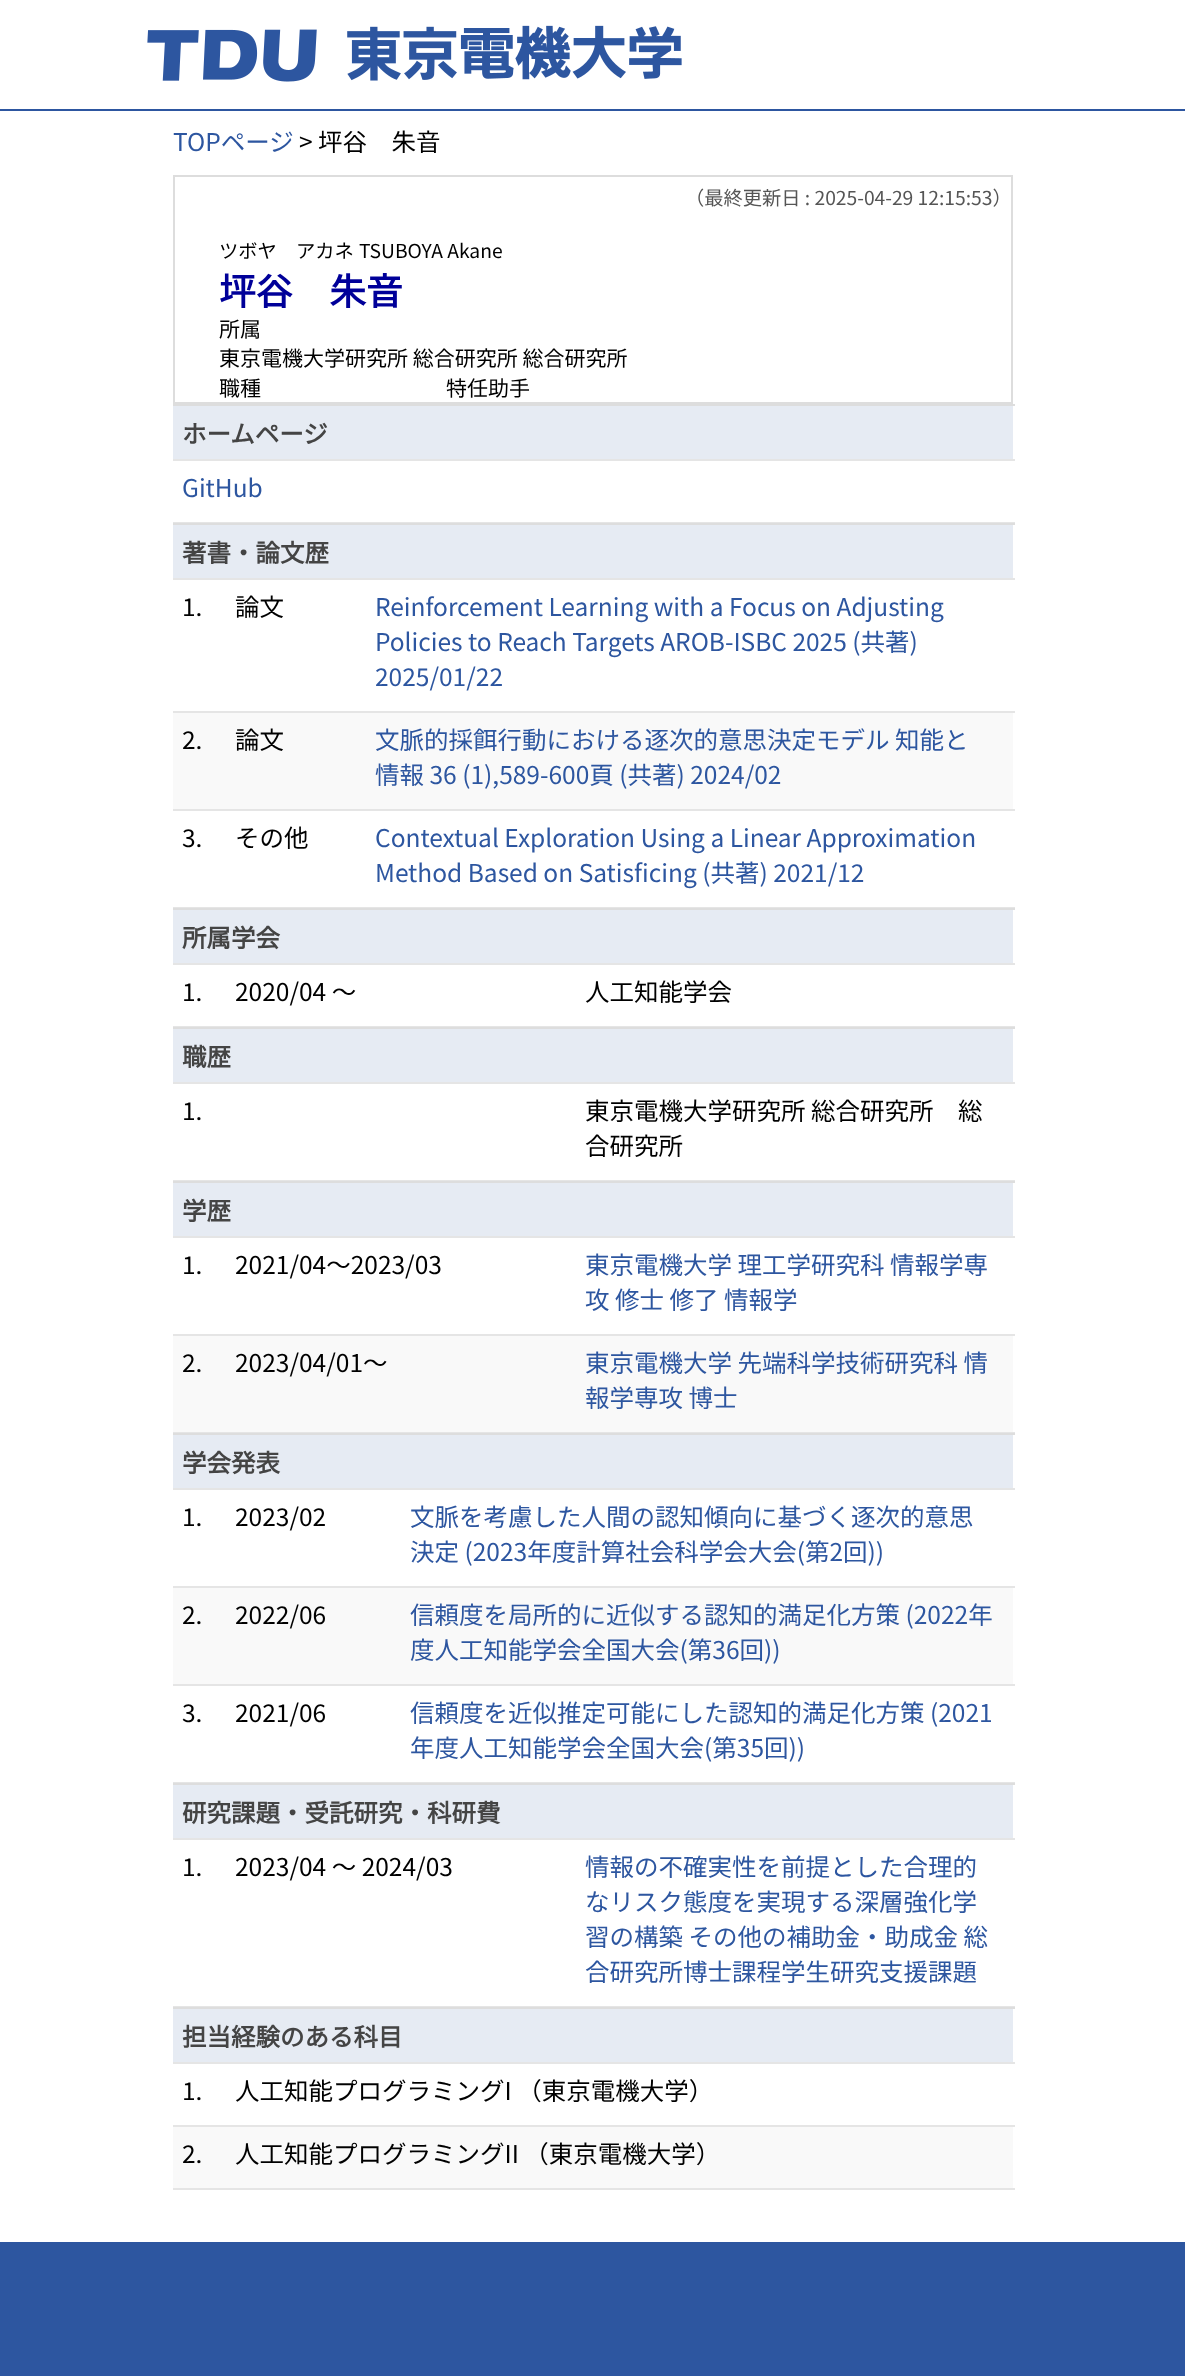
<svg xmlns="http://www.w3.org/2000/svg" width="1185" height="2376">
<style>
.a{font:100 24.5px Noto Sans JP;fill:#2d56a0}
.b{font:100 24.5px Noto Sans JP;fill:#000}
.c{font:100 19.25px Noto Sans JP;fill:#555}
.d{font:100 19.25px Noto Sans JP;fill:#000}
.e{font:bold 36.75px Noto Sans JP;fill:#009}
.f{font:100 21px Noto Sans JP;fill:#000}
.g{font:bold 24.5px Noto Sans JP;fill:#444}
</style>
<rect width="100%" height="100%" fill="#fff"/>
<path fill="#2d56a0" d="M0 109h1185v2H0z"/>
<image href="1.png" x="147" y="25" width="535" height="57"/>
<path fill="none" stroke="#ddd" stroke-width="2" d="M174 176h838v227H174z"/>
<path fill="#e6ebf3" d="M173 406h840v53H173z"/>
<path fill="#ddd" d="M173 404h842v2H173z"/>
<path fill="#e5e5e5" d="M173 459h842v2H173z"/>
<path fill="#e5e5e5" d="M173 522h842v1H173z"/>
<path fill="#e6ebf3" d="M173 525h840v53H173z"/>
<path fill="#ddd" d="M173 523h842v2H173z"/>
<path fill="#e5e5e5" d="M173 578h842v2H173z"/>
<path fill="#e5e5e5" d="M173 711h842v2H173z"/>
<path fill="#f9f9f9" d="M173 713h840v96H173z"/>
<path fill="#e5e5e5" d="M173 809h842v2H173z"/>
<path fill="#e5e5e5" d="M173 907h842v1H173z"/>
<path fill="#e6ebf3" d="M173 910h840v53H173z"/>
<path fill="#ddd" d="M173 908h842v2H173z"/>
<path fill="#e5e5e5" d="M173 963h842v2H173z"/>
<path fill="#e5e5e5" d="M173 1026h842v1H173z"/>
<path fill="#e6ebf3" d="M173 1029h840v53H173z"/>
<path fill="#ddd" d="M173 1027h842v2H173z"/>
<path fill="#e5e5e5" d="M173 1082h842v2H173z"/>
<path fill="#e5e5e5" d="M173 1180h842v1H173z"/>
<path fill="#e6ebf3" d="M173 1183h840v53H173z"/>
<path fill="#ddd" d="M173 1181h842v2H173z"/>
<path fill="#e5e5e5" d="M173 1236h842v2H173z"/>
<path fill="#e5e5e5" d="M173 1334h842v2H173z"/>
<path fill="#f9f9f9" d="M173 1336h840v96H173z"/>
<path fill="#e5e5e5" d="M173 1432h842v1H173z"/>
<path fill="#e6ebf3" d="M173 1435h840v53H173z"/>
<path fill="#ddd" d="M173 1433h842v2H173z"/>
<path fill="#e5e5e5" d="M173 1488h842v2H173z"/>
<path fill="#e5e5e5" d="M173 1586h842v2H173z"/>
<path fill="#f9f9f9" d="M173 1588h840v96H173z"/>
<path fill="#e5e5e5" d="M173 1684h842v2H173z"/>
<path fill="#e5e5e5" d="M173 1782h842v1H173z"/>
<path fill="#e6ebf3" d="M173 1785h840v53H173z"/>
<path fill="#ddd" d="M173 1783h842v2H173z"/>
<path fill="#e5e5e5" d="M173 1838h842v2H173z"/>
<path fill="#e5e5e5" d="M173 2006h842v1H173z"/>
<path fill="#e6ebf3" d="M173 2009h840v53H173z"/>
<path fill="#ddd" d="M173 2007h842v2H173z"/>
<path fill="#e5e5e5" d="M173 2062h842v2H173z"/>
<path fill="#e5e5e5" d="M173 2125h842v2H173z"/>
<path fill="#f9f9f9" d="M173 2127h840v61H173z"/>
<path fill="#e5e5e5" d="M173 2188h842v2H173z"/>
<path fill="#2d56a0" d="M0 2242h1185v134H0z"/>
<text class="a" x="173" y="151">TOPページ</text>
<text class="b" x="299" y="151">&gt; 坪谷　朱音</text>
<text class="c" x="685" y="205">（最終更新日 : 2025-04-29 12:15:53）</text>
<text class="d" x="219" y="258">ツボヤ　アカネ</text>
<text class="d" x="359" y="258">TSUBOYA Akane</text>
<text class="e" x="219" y="305">坪谷　朱音</text>
<text class="f" x="219" y="337">所属</text>
<text class="f" x="219" y="366">東京電機大学研究所 総合研究所 総合研究所</text>
<text class="f" x="219" y="396">職種</text>
<text class="f" x="446" y="396">特任助手</text>
<text class="g" x="182" y="443">ホームページ</text>
<text class="a" x="182" y="497">GitHub</text>
<text class="g" x="182" y="562">著書・論文歴</text>
<text class="b" x="182" y="616">1.</text>
<text class="b" x="235" y="616">論文</text>
<text class="a" x="375" y="616">Reinforcement Learning with a Focus on Adjusting</text>
<text class="a" x="375" y="651">Policies to Reach Targets AROB-ISBC 2025 (共著)</text>
<text class="a" x="375" y="686">2025/01/22</text>
<text class="b" x="182" y="749">2.</text>
<text class="b" x="235" y="749">論文</text>
<text class="a" x="375" y="749">文脈的採餌行動における逐次的意思決定モデル 知能と</text>
<text class="a" x="375" y="784">情報 36 (1),589-600頁 (共著) 2024/02</text>
<text class="b" x="182" y="847">3.</text>
<text class="b" x="235" y="847">その他</text>
<text class="a" x="375" y="847">Contextual Exploration Using a Linear Approximation</text>
<text class="a" x="375" y="882">Method Based on Satisficing (共著) 2021/12</text>
<text class="g" x="182" y="947">所属学会</text>
<text class="b" x="182" y="1001">1.</text>
<text class="b" x="235" y="1001">2020/04 ～</text>
<text class="b" x="585" y="1001">人工知能学会</text>
<text class="g" x="182" y="1066">職歴</text>
<text class="b" x="182" y="1120">1.</text>
<text class="b" x="585" y="1120">東京電機大学研究所 総合研究所　総</text>
<text class="b" x="585" y="1155">合研究所</text>
<text class="g" x="182" y="1220">学歴</text>
<text class="b" x="182" y="1274">1.</text>
<text class="b" x="235" y="1274">2021/04～2023/03</text>
<text class="a" x="585" y="1274">東京電機大学 理工学研究科 情報学専</text>
<text class="a" x="585" y="1309">攻 修士 修了 情報学</text>
<text class="b" x="182" y="1372">2.</text>
<text class="b" x="235" y="1372">2023/04/01～</text>
<text class="a" x="585" y="1372">東京電機大学 先端科学技術研究科 情</text>
<text class="a" x="585" y="1407">報学専攻 博士</text>
<text class="g" x="182" y="1472">学会発表</text>
<text class="b" x="182" y="1526">1.</text>
<text class="b" x="235" y="1526">2023/02</text>
<text class="a" x="410" y="1526">文脈を考慮した人間の認知傾向に基づく逐次的意思</text>
<text class="a" x="410" y="1561">決定 (2023年度計算社会科学会大会(第2回))</text>
<text class="b" x="182" y="1624">2.</text>
<text class="b" x="235" y="1624">2022/06</text>
<text class="a" x="410" y="1624">信頼度を局所的に近似する認知的満足化方策 (2022年</text>
<text class="a" x="410" y="1659">度人工知能学会全国大会(第36回))</text>
<text class="b" x="182" y="1722">3.</text>
<text class="b" x="235" y="1722">2021/06</text>
<text class="a" x="410" y="1722">信頼度を近似推定可能にした認知的満足化方策 (2021</text>
<text class="a" x="410" y="1757">年度人工知能学会全国大会(第35回))</text>
<text class="g" x="182" y="1822">研究課題・受託研究・科研費</text>
<text class="b" x="182" y="1876">1.</text>
<text class="b" x="235" y="1876">2023/04 ～ 2024/03</text>
<text class="a" x="585" y="1876">情報の不確実性を前提とした合理的</text>
<text class="a" x="585" y="1911">なリスク態度を実現する深層強化学</text>
<text class="a" x="585" y="1946">習の構築 その他の補助金・助成金 総</text>
<text class="a" x="585" y="1981">合研究所博士課程学生研究支援課題</text>
<text class="g" x="182" y="2046">担当経験のある科目</text>
<text class="b" x="182" y="2100">1.</text>
<text class="b" x="235" y="2100">人工知能プログラミングI （東京電機大学）</text>
<text class="b" x="182" y="2163">2.</text>
<text class="b" x="235" y="2163">人工知能プログラミングII （東京電機大学）</text>
</svg>
